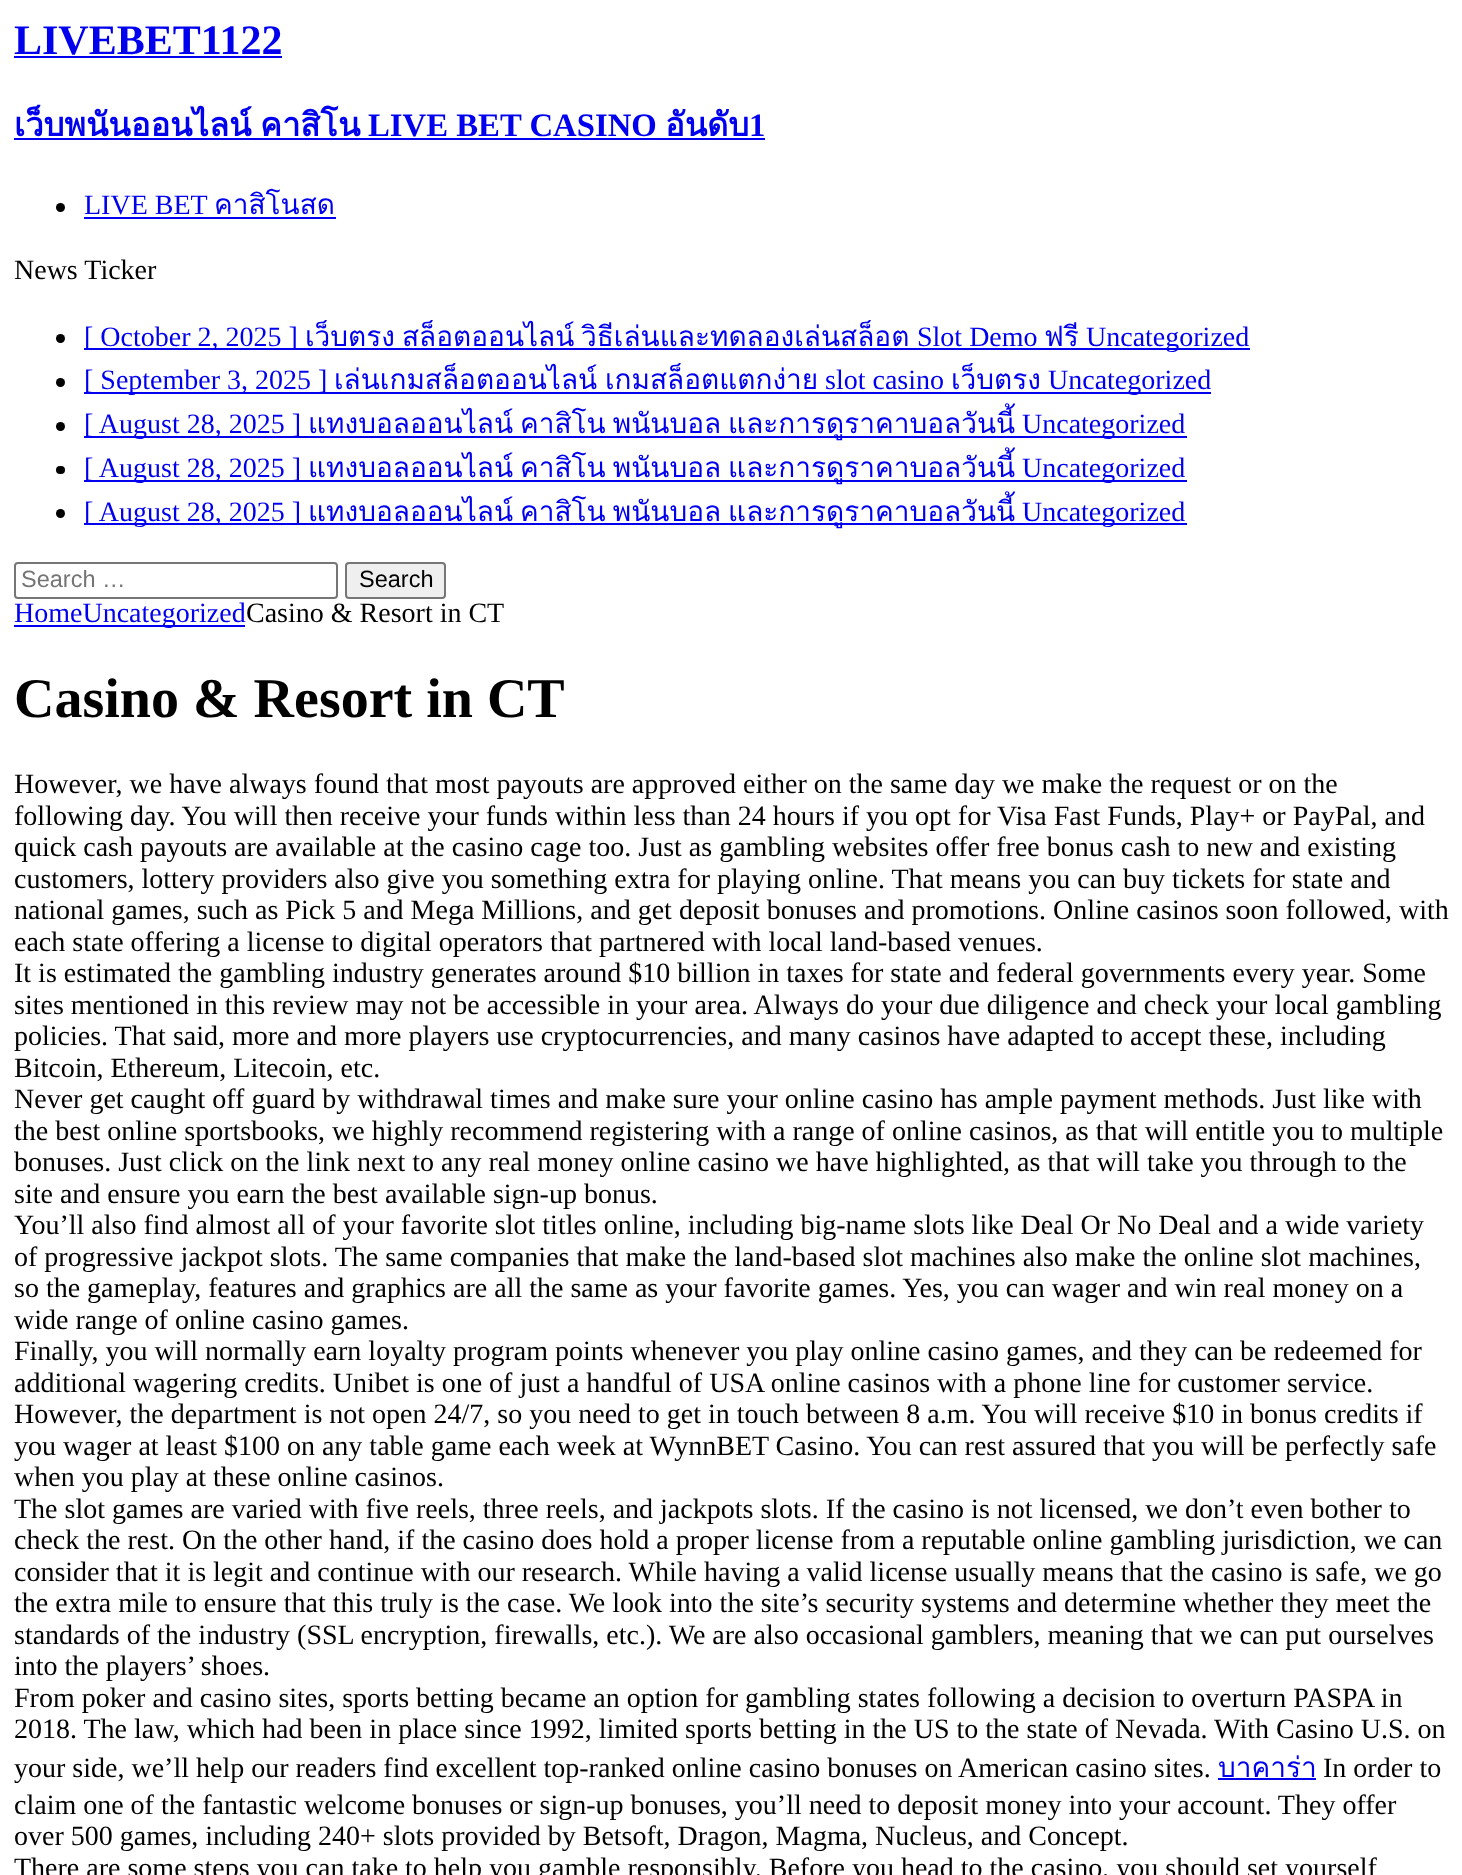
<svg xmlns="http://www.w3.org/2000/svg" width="1462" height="1875">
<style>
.a{font:bold 42px Liberation Serif;fill:#00e}
.b{font:bold 32.75px Loma;fill:#00e}
.c{font:bold 32.75px Liberation Serif;fill:#00e}
.d{font:28px Liberation Serif;fill:#00e}
.e{font:28px Loma;fill:#00e}
.f{font:28px Liberation Serif;fill:#000}
.g{font:23.5px Liberation Sans;fill:#757575}
.h{font:23.5px Liberation Sans;fill:#000}
.i{font:bold 56px Liberation Serif;fill:#000}
</style>
<rect width="100%" height="100%" fill="#fff"/>
<path fill="#00e" d="M14 56h268v2H14z"/>
<path fill="#00e" d="M14 138h751v2H14z"/>
<circle fill="#000" cx="60.5" cy="207.5" r="4.5"/>
<path fill="#00e" d="M84 217h252v2H84z"/>
<circle fill="#000" cx="60.5" cy="338.5" r="4.5"/>
<path fill="#00e" d="M84 348h1166v2H84z"/>
<circle fill="#000" cx="60.5" cy="382.5" r="4.5"/>
<path fill="#00e" d="M84 392h1127v2H84z"/>
<circle fill="#000" cx="60.5" cy="426.5" r="4.5"/>
<path fill="#00e" d="M84 436h1103v2H84z"/>
<rect fill="#000" x="56" y="466" width="9" height="8" rx="4"/>
<path fill="#00e" d="M84 480h1103v2H84z"/>
<circle fill="#000" cx="60.5" cy="513.5" r="4.5"/>
<path fill="#00e" d="M84 523h1103v2H84z"/>
<rect fill="none" stroke="#767676" stroke-width="2" x="15" y="563" width="322" height="35" rx="3"/>
<rect fill="#efefef" stroke="#767676" stroke-width="2" x="346" y="563" width="99" height="35" rx="3"/>
<path fill="#00e" d="M14 625h231v2H14z"/>
<path fill="#00e" d="M1218 1778h98v2H1218z"/>
<text class="a" x="14" y="54">LIVEBET1122</text>
<text class="b" x="14" y="136">เว็บพนันออนไลน์</text>
<text class="b" x="260" y="136">คาสิโน</text>
<text class="c" x="368" y="136">LIVE BET CASINO</text>
<text class="b" x="665" y="136">อันดับ</text>
<text class="c" x="749" y="136">1</text>
<text class="d" x="84" y="214">LIVE BET</text>
<text class="e" x="214" y="214">คาสิโนสด</text>
<text class="f" x="14" y="279">News Ticker</text>
<text class="d" x="84" y="346">[ October 2, 2025 ]</text>
<text class="e" x="305" y="346">เว็บตรง</text>
<text class="e" x="402" y="346">สล็อตออนไลน์</text>
<text class="e" x="581" y="346">วิธีเล่นและทดลองเล่นสล็อต</text>
<text class="d" x="917" y="346">Slot Demo</text>
<text class="e" x="1044" y="346">ฟรี</text>
<text class="d" x="1086" y="346">Uncategorized</text>
<text class="d" x="84" y="389">[ September 3, 2025 ]</text>
<text class="e" x="334" y="389">เล่นเกมสล็อตออนไลน์</text>
<text class="e" x="605" y="389">เกมสล็อตแตกง่าย</text>
<text class="d" x="825" y="389">slot casino</text>
<text class="e" x="951" y="389">เว็บตรง</text>
<text class="d" x="1048" y="389">Uncategorized</text>
<text class="d" x="84" y="433">[ August 28, 2025 ]</text>
<text class="e" x="308" y="433" word-spacing="-2.5">แทงบอลออนไลน์ คาสิโน พนันบอล และการดูราคาบอลวันนี้</text>
<text class="d" x="1022" y="433">Uncategorized</text>
<text class="d" x="84" y="477">[ August 28, 2025 ]</text>
<text class="e" x="308" y="477" word-spacing="-2.5">แทงบอลออนไลน์ คาสิโน พนันบอล และการดูราคาบอลวันนี้</text>
<text class="d" x="1022" y="477">Uncategorized</text>
<text class="d" x="84" y="521">[ August 28, 2025 ]</text>
<text class="e" x="308" y="521" word-spacing="-2.5">แทงบอลออนไลน์ คาสิโน พนันบอล และการดูราคาบอลวันนี้</text>
<text class="d" x="1022" y="521">Uncategorized</text>
<text class="g" x="21" y="587">Search …</text>
<text class="h" x="359" y="587">Search</text>
<text class="d" x="14" y="622">HomeUncategorized</text>
<text class="f" x="246" y="622">Casino &amp; Resort in CT</text>
<text class="i" x="14" y="717">Casino &amp; Resort in CT</text>
<text class="f" x="14" y="793">However, we have always found that most payouts are approved either on the same day we make the request or on the</text>
<text class="f" x="14" y="825">following day. You will then receive your funds within less than 24 hours if you opt for Visa Fast Funds, Play+ or PayPal, and</text>
<text class="f" x="14" y="856">quick cash payouts are available at the casino cage too. Just as gambling websites offer free bonus cash to new and existing</text>
<text class="f" x="14" y="888">customers, lottery providers also give you something extra for playing online. That means you can buy tickets for state and</text>
<text class="f" x="14" y="919">national games, such as Pick 5 and Mega Millions, and get deposit bonuses and promotions. Online casinos soon followed, with</text>
<text class="f" x="14" y="951">each state offering a license to digital operators that partnered with local land-based venues.</text>
<text class="f" x="14" y="982">It is estimated the gambling industry generates around $10 billion in taxes for state and federal governments every year. Some</text>
<text class="f" x="14" y="1014">sites mentioned in this review may not be accessible in your area. Always do your due diligence and check your local gambling</text>
<text class="f" x="14" y="1045">policies. That said, more and more players use cryptocurrencies, and many casinos have adapted to accept these, including</text>
<text class="f" x="14" y="1077">Bitcoin, Ethereum, Litecoin, etc.</text>
<text class="f" x="14" y="1108">Never get caught off guard by withdrawal times and make sure your online casino has ample payment methods. Just like with</text>
<text class="f" x="14" y="1140">the best online sportsbooks, we highly recommend registering with a range of online casinos, as that will entitle you to multiple</text>
<text class="f" x="14" y="1171">bonuses. Just click on the link next to any real money online casino we have highlighted, as that will take you through to the</text>
<text class="f" x="14" y="1203">site and ensure you earn the best available sign-up bonus.</text>
<text class="f" x="14" y="1234">You’ll also find almost all of your favorite slot titles online, including big-name slots like Deal Or No Deal and a wide variety</text>
<text class="f" x="14" y="1266">of progressive jackpot slots. The same companies that make the land-based slot machines also make the online slot machines,</text>
<text class="f" x="14" y="1297">so the gameplay, features and graphics are all the same as your favorite games. Yes, you can wager and win real money on a</text>
<text class="f" x="14" y="1329">wide range of online casino games.</text>
<text class="f" x="14" y="1360">Finally, you will normally earn loyalty program points whenever you play online casino games, and they can be redeemed for</text>
<text class="f" x="14" y="1392">additional wagering credits. Unibet is one of just a handful of USA online casinos with a phone line for customer service.</text>
<text class="f" x="14" y="1423">However, the department is not open 24/7, so you need to get in touch between 8 a.m. You will receive $10 in bonus credits if</text>
<text class="f" x="14" y="1455">you wager at least $100 on any table game each week at WynnBET Casino. You can rest assured that you will be perfectly safe</text>
<text class="f" x="14" y="1486">when you play at these online casinos.</text>
<text class="f" x="14" y="1518">The slot games are varied with five reels, three reels, and jackpots slots. If the casino is not licensed, we don’t even bother to</text>
<text class="f" x="14" y="1549">check the rest. On the other hand, if the casino does hold a proper license from a reputable online gambling jurisdiction, we can</text>
<text class="f" x="14" y="1581">consider that it is legit and continue with our research. While having a valid license usually means that the casino is safe, we go</text>
<text class="f" x="14" y="1612">the extra mile to ensure that this truly is the case. We look into the site’s security systems and determine whether they meet the</text>
<text class="f" x="14" y="1644">standards of the industry (SSL encryption, firewalls, etc.). We are also occasional gamblers, meaning that we can put ourselves</text>
<text class="f" x="14" y="1675">into the players’ shoes.</text>
<text class="f" x="14" y="1707">From poker and casino sites, sports betting became an option for gambling states following a decision to overturn PASPA in</text>
<text class="f" x="14" y="1738">2018. The law, which had been in place since 1992, limited sports betting in the US to the state of Nevada. With Casino U.S. on</text>
<text class="f" x="14" y="1777">your side, we’ll help our readers find excellent top-ranked online casino bonuses on American casino sites.</text>
<text class="e" x="1218" y="1777">บาคาร่า</text>
<text class="f" x="1323" y="1777">In order to</text>
<text class="f" x="14" y="1814">claim one of the fantastic welcome bonuses or sign-up bonuses, you’ll need to deposit money into your account. They offer</text>
<text class="f" x="14" y="1845">over 500 games, including 240+ slots provided by Betsoft, Dragon, Magma, Nucleus, and Concept.</text>
<text class="f" x="14" y="1877">There are some steps you can take to help you gamble responsibly. Before you head to the casino, you should set yourself</text>
</svg>
